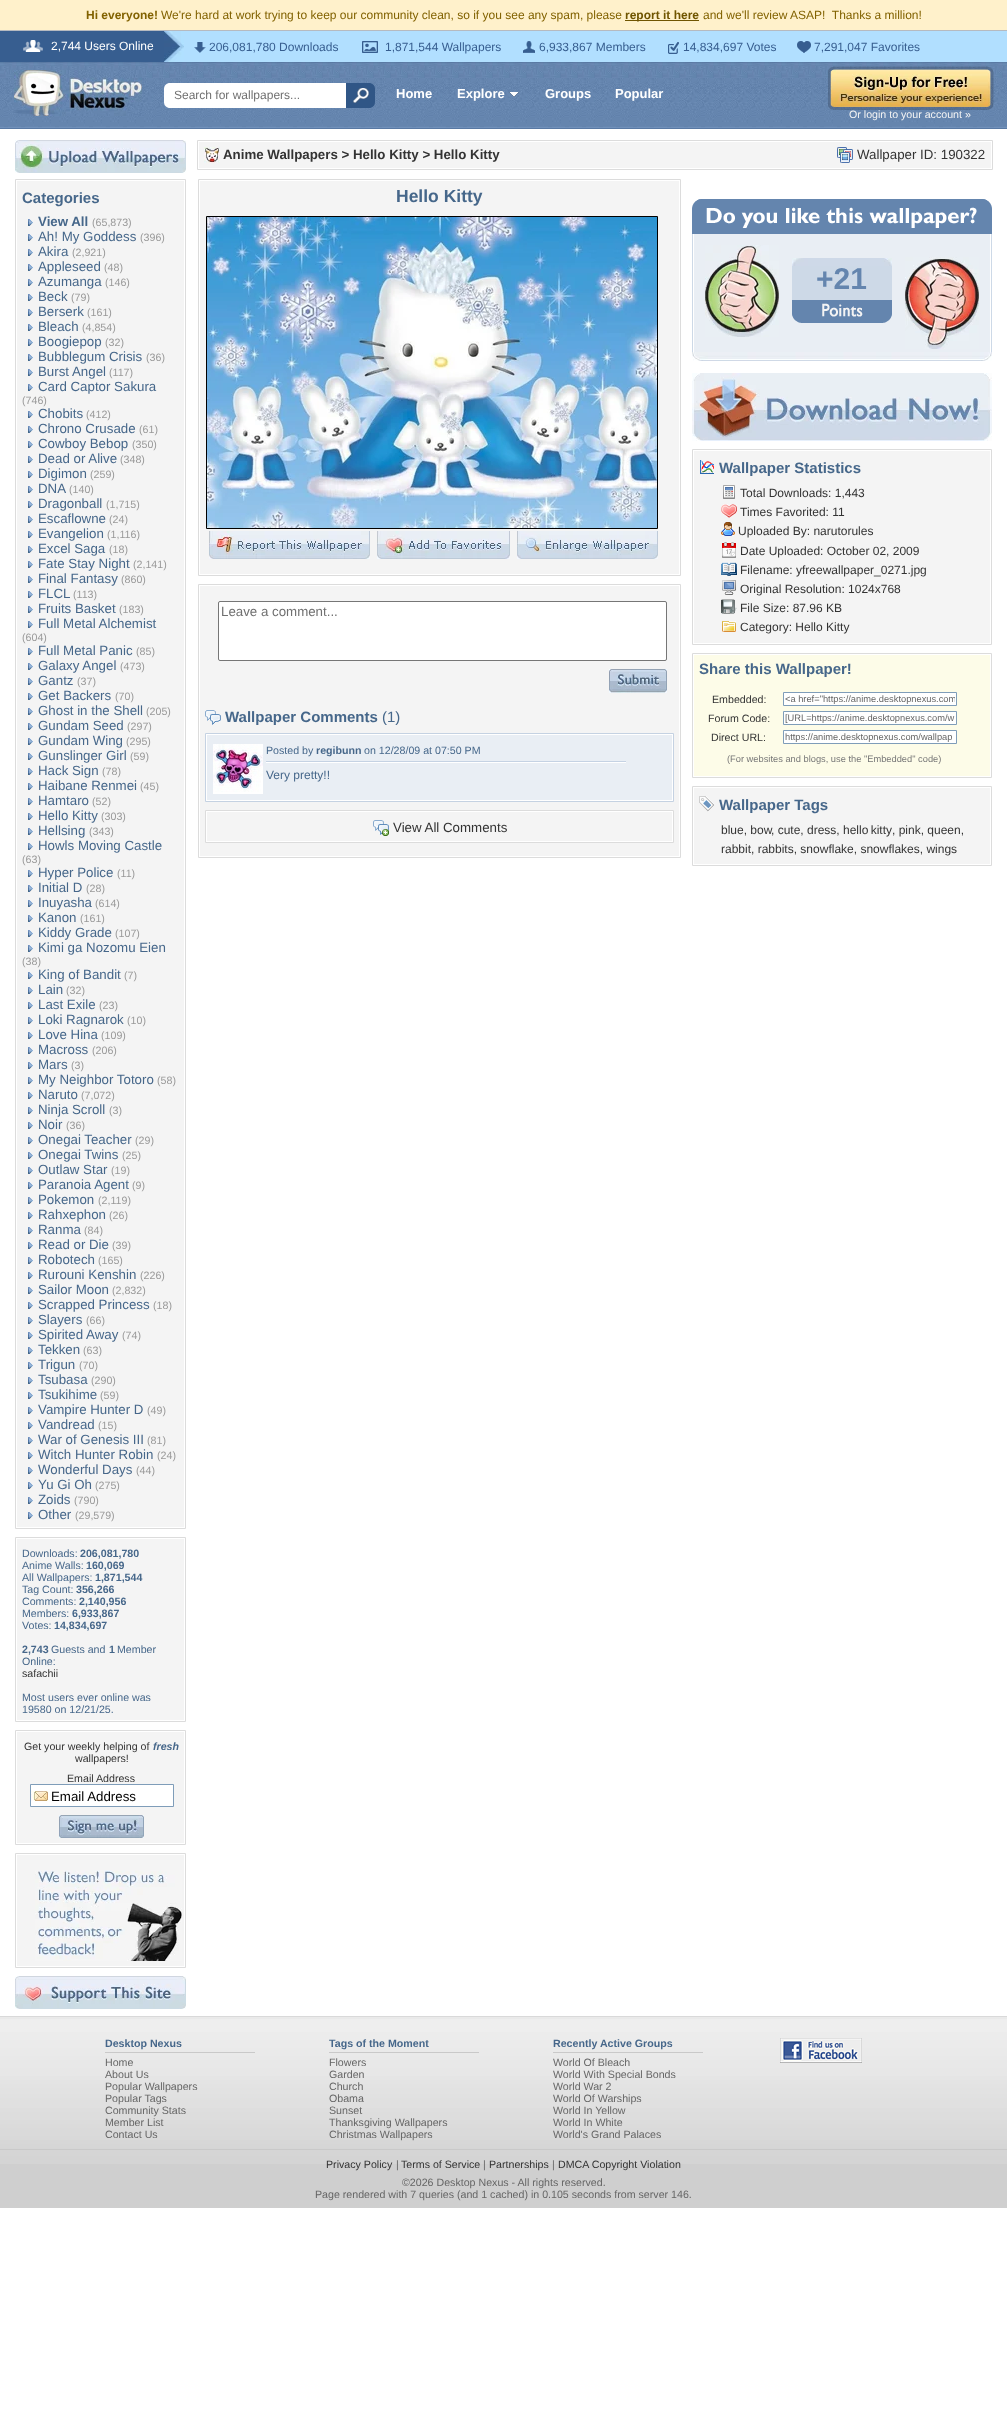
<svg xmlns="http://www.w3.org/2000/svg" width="1007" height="2433">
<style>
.a{font:bold 12px Liberation Sans;fill:#826200}
.b{font:12px Liberation Sans;fill:#826200}
.c{font:bold 12px Liberation Sans;fill:#705500}
.d{font:12px Liberation Sans;fill:#fff}
.e{font:12px Liberation Sans;fill:#375e90}
.f{font:12px Liberation Sans;fill:#707070}
.g{font:bold 13px Liberation Sans;fill:#fff}
.h{font:10.65px Liberation Sans;fill:#f4f4f4}
.i{font:bold 15px Liberation Sans;fill:#46678a}
.j{font:bold 13.3px Liberation Sans;fill:#46678a}
.k{font:10.65px Liberation Sans;fill:#999}
.l{font:13.3px Liberation Sans;fill:#46678a}
.m{font:10.65px Liberation Sans;fill:#46678a}
.n{font:bold 10.65px Liberation Sans;fill:#46678a}
.o{font:10.65px Liberation Sans;fill:#333}
.p{font:italic bold 10.65px Liberation Sans;fill:#46678a}
.q{font:13.3px Liberation Sans;fill:#000}
.r{font:bold 13.3px Liberation Sans;fill:#333}
.s{font:13.3px Liberation Sans;fill:#333}
.t{font:bold 17.5px Liberation Sans;fill:#46678a}
.u{font:13.3px Liberation Sans;fill:#707070}
.v{font:15px Liberation Sans;fill:#46678a}
.w{font:12px Liberation Sans;fill:#46678a}
.x{font:bold 30px Liberation Sans;fill:#6485ae}
.y{font:12px Liberation Sans;fill:#333}
.z{font:9.3px Liberation Sans;fill:#666}
.a1{font:9.3px Liberation Sans;fill:#777}
.b1{font:10.65px Liberation Sans;fill:#666}
</style>
<defs>
<clipPath id="clip1"><path d="M785 694h170v10H785z"/></clipPath>
</defs>
<rect width="100%" height="100%" fill="#fff"/>
<path fill="#fff1cb" d="M0 0h1007v30H0z"/>
<path fill="#705500" d="M625 20h74v1H625z"/>
<path fill="#b1dfff" d="M184 31h823v31H184z"/>
<path fill="#b6bac0" d="M0 30h1007v1H0z"/>
<path fill="#375e90" d="M0 31h164v31H0z"/>
<image href="1.png" x="23" y="40" width="20" height="12"/>
<image href="2.png" x="164" y="31" width="20" height="31"/>
<image href="3.png" x="194" y="42" width="12" height="11"/>
<image href="4.png" x="362" y="41" width="16" height="12"/>
<image href="5.png" x="523" y="41" width="12" height="12"/>
<image href="6.png" x="668" y="42" width="11" height="12"/>
<image href="7.png" x="797" y="41" width="14" height="12"/>
<image href="8.png" x="0" y="62" width="1007" height="67"/>
<image href="9.png" x="14" y="70" width="128" height="46"/>
<path fill="#fff" d="M170 83h192v25h-192c-3.5 0-6-2.5-6-6v-13c0-3.5 2.5-6 6-6z"/>
<path fill="#305686" d="M346 83h23c3.5 0 6 2.5 6 6v13c0 3.5-2.5 6-6 6h-23z"/>
<image href="10.png" x="353" y="88" width="16" height="15"/>
<image href="11.png" x="509" y="92" width="10" height="5"/>
<image href="12.png" x="828" y="66" width="166" height="44"/>
<image href="13.png" x="15" y="140" width="171" height="33"/>
<path fill="none" stroke="#dcdcdc" d="M15.5 179.5h170v1349H15.5z"/>
<path fill="#f4f4f4" d="M17 181h167v1346H17z"/>
<image href="14.png" x="28" y="219" width="5" height="7"/>
<image href="14.png" x="28" y="234" width="5" height="7"/>
<image href="14.png" x="28" y="249" width="5" height="7"/>
<image href="14.png" x="28" y="264" width="5" height="7"/>
<image href="14.png" x="28" y="279" width="5" height="7"/>
<image href="14.png" x="28" y="294" width="5" height="7"/>
<image href="14.png" x="28" y="309" width="5" height="7"/>
<image href="14.png" x="28" y="324" width="5" height="7"/>
<image href="14.png" x="28" y="339" width="5" height="7"/>
<image href="14.png" x="28" y="354" width="5" height="7"/>
<image href="14.png" x="28" y="369" width="5" height="7"/>
<image href="14.png" x="28" y="384" width="5" height="7"/>
<image href="14.png" x="28" y="411" width="5" height="7"/>
<image href="14.png" x="28" y="426" width="5" height="7"/>
<image href="14.png" x="28" y="441" width="5" height="7"/>
<image href="14.png" x="28" y="456" width="5" height="7"/>
<image href="14.png" x="28" y="471" width="5" height="7"/>
<image href="14.png" x="28" y="486" width="5" height="7"/>
<image href="14.png" x="28" y="501" width="5" height="7"/>
<image href="14.png" x="28" y="516" width="5" height="7"/>
<image href="14.png" x="28" y="531" width="5" height="7"/>
<image href="14.png" x="28" y="546" width="5" height="7"/>
<image href="14.png" x="28" y="561" width="5" height="7"/>
<image href="14.png" x="28" y="576" width="5" height="7"/>
<image href="14.png" x="28" y="591" width="5" height="7"/>
<image href="14.png" x="28" y="606" width="5" height="7"/>
<image href="14.png" x="28" y="621" width="5" height="7"/>
<image href="14.png" x="28" y="648" width="5" height="7"/>
<image href="14.png" x="28" y="663" width="5" height="7"/>
<image href="14.png" x="28" y="678" width="5" height="7"/>
<image href="14.png" x="28" y="693" width="5" height="7"/>
<image href="14.png" x="28" y="708" width="5" height="7"/>
<image href="14.png" x="28" y="723" width="5" height="7"/>
<image href="14.png" x="28" y="738" width="5" height="7"/>
<image href="14.png" x="28" y="753" width="5" height="7"/>
<image href="14.png" x="28" y="768" width="5" height="7"/>
<image href="14.png" x="28" y="783" width="5" height="7"/>
<image href="14.png" x="28" y="798" width="5" height="7"/>
<image href="14.png" x="28" y="813" width="5" height="7"/>
<image href="14.png" x="28" y="828" width="5" height="7"/>
<image href="14.png" x="28" y="843" width="5" height="7"/>
<image href="14.png" x="28" y="870" width="5" height="7"/>
<image href="14.png" x="28" y="885" width="5" height="7"/>
<image href="14.png" x="28" y="900" width="5" height="7"/>
<image href="14.png" x="28" y="915" width="5" height="7"/>
<image href="14.png" x="28" y="930" width="5" height="7"/>
<image href="14.png" x="28" y="945" width="5" height="7"/>
<image href="14.png" x="28" y="972" width="5" height="7"/>
<image href="14.png" x="28" y="987" width="5" height="7"/>
<image href="14.png" x="28" y="1002" width="5" height="7"/>
<image href="14.png" x="28" y="1017" width="5" height="7"/>
<image href="14.png" x="28" y="1032" width="5" height="7"/>
<image href="14.png" x="28" y="1047" width="5" height="7"/>
<image href="14.png" x="28" y="1062" width="5" height="7"/>
<image href="14.png" x="28" y="1077" width="5" height="7"/>
<image href="14.png" x="28" y="1092" width="5" height="7"/>
<image href="14.png" x="28" y="1107" width="5" height="7"/>
<image href="14.png" x="28" y="1122" width="5" height="7"/>
<image href="14.png" x="28" y="1137" width="5" height="7"/>
<image href="14.png" x="28" y="1152" width="5" height="7"/>
<image href="14.png" x="28" y="1167" width="5" height="7"/>
<image href="14.png" x="28" y="1182" width="5" height="7"/>
<image href="14.png" x="28" y="1197" width="5" height="7"/>
<image href="14.png" x="28" y="1212" width="5" height="7"/>
<image href="14.png" x="28" y="1227" width="5" height="7"/>
<image href="14.png" x="28" y="1242" width="5" height="7"/>
<image href="14.png" x="28" y="1257" width="5" height="7"/>
<image href="14.png" x="28" y="1272" width="5" height="7"/>
<image href="14.png" x="28" y="1287" width="5" height="7"/>
<image href="14.png" x="28" y="1302" width="5" height="7"/>
<image href="14.png" x="28" y="1317" width="5" height="7"/>
<image href="14.png" x="28" y="1332" width="5" height="7"/>
<image href="14.png" x="28" y="1347" width="5" height="7"/>
<image href="14.png" x="28" y="1362" width="5" height="7"/>
<image href="14.png" x="28" y="1377" width="5" height="7"/>
<image href="14.png" x="28" y="1392" width="5" height="7"/>
<image href="14.png" x="28" y="1407" width="5" height="7"/>
<image href="14.png" x="28" y="1422" width="5" height="7"/>
<image href="14.png" x="28" y="1437" width="5" height="7"/>
<image href="14.png" x="28" y="1452" width="5" height="7"/>
<image href="14.png" x="28" y="1467" width="5" height="7"/>
<image href="14.png" x="28" y="1482" width="5" height="7"/>
<image href="14.png" x="28" y="1497" width="5" height="7"/>
<image href="14.png" x="28" y="1512" width="5" height="7"/>
<path fill="none" stroke="#dcdcdc" d="M15.5 1537.5h170v184H15.5z"/>
<path fill="#f4f4f4" d="M17 1539h167v181H17z"/>
<path fill="none" stroke="#dcdcdc" d="M15.5 1730.5h170v114H15.5z"/>
<path fill="#f4f4f4" d="M17 1732h167v111H17z"/>
<path fill="#fff" d="M31 1785h142v21H31z"/>
<image href="15.png" x="31" y="1791" width="17" height="10"/>
<path fill="none" stroke="#7f9db9" d="M30.5 1784.5h143v22H30.5z"/>
<image href="16.png" x="59" y="1815" width="85" height="23"/>
<path fill="none" stroke="#dcdcdc" d="M15.5 1853.5h170v114H15.5z"/>
<path fill="#f4f4f4" d="M17 1855h167v111H17z"/>
<image href="17.png" x="35" y="1870" width="147" height="91"/>
<image href="18.png" x="15" y="1976" width="171" height="33"/>
<path fill="none" stroke="#dcdcdc" d="M197.5 140.5h795v29H197.5z"/>
<path fill="#f4f4f4" d="M199 142h792v26H199z"/>
<image href="19.png" x="204" y="147" width="16" height="16"/>
<image href="20.png" x="837" y="147" width="16" height="16"/>
<path fill="none" stroke="#dcdcdc" d="M198.5 179.5h482v396H198.5z"/>
<path fill="#f4f4f4" d="M200 181h479v393H200z"/>
<path fill="none" stroke="#000" d="M206.5 216.5h451v312H206.5z"/>
<image href="21.png" x="207" y="217" width="450" height="311"/>
<image href="22.png" x="209" y="531" width="161" height="28"/>
<image href="23.png" x="377" y="531" width="133" height="28"/>
<image href="24.png" x="517" y="531" width="141" height="28"/>
<path fill="none" stroke="#dcdcdc" d="M198.5 584.5h482v273H198.5z"/>
<path fill="#f4f4f4" d="M200 586h479v270H200z"/>
<rect fill="#fff" stroke="#767676" x="218.5" y="601.5" width="448" height="59" rx="1.5"/>
<image href="25.png" x="609" y="669" width="58" height="24"/>
<image href="26.png" x="205" y="710" width="16" height="15"/>
<path fill="#fff" stroke="#c5d2e2" d="M205.5 733.5h468v68H205.5z"/>
<path fill="#e9eef4" d="M207 735h465v65H207z"/>
<image href="27.png" x="213" y="744" width="50" height="50"/>
<path fill="#c5d2e3" d="M266 761h360v1H266z"/>
<path fill="#fff" d="M266 762h360v1H266z"/>
<path fill="#fff" stroke="#dcdcdc" d="M205.5 810.5h468v32H205.5z"/>
<path fill="#f4f4f4" d="M207 812h465v29H207z"/>
<image href="28.png" x="373" y="820" width="16" height="16"/>
<image href="29.png" x="692" y="199" width="300" height="35"/>
<image href="30.png" x="692" y="234" width="300" height="118"/>
<image href="31.png" x="705" y="245" width="74" height="92"/>
<path fill="#cdd9e7" d="M792 266h100v34H792z"/>
<image href="32.png" x="792" y="258" width="100" height="8"/>
<image href="33.png" x="792" y="300" width="100" height="23"/>
<image href="34.png" x="905" y="257" width="74" height="92"/>
<image href="35.png" x="692" y="352" width="300" height="9"/>
<image href="36.png" x="692" y="373" width="300" height="68"/>
<path fill="none" stroke="#dcdcdc" d="M692.5 449.5h299v195H692.5z"/>
<path fill="#f4f4f4" d="M694 451h296v192H694z"/>
<image href="37.png" x="700" y="460" width="14" height="14"/>
<image href="38.png" x="723" y="485" width="12" height="14"/>
<image href="39.png" x="721" y="504" width="16" height="14"/>
<image href="40.png" x="721" y="522" width="14" height="14"/>
<image href="41.png" x="722" y="542" width="14" height="16"/>
<image href="42.png" x="721" y="562" width="16" height="14"/>
<image href="43.png" x="722" y="580" width="14" height="15"/>
<image href="44.png" x="721" y="599" width="16" height="15"/>
<image href="45.png" x="722" y="621" width="14" height="11"/>
<path fill="none" stroke="#dcdcdc" d="M692.5 653.5h299v124H692.5z"/>
<path fill="#fdfce8" d="M694 655h296v121H694z"/>
<path fill="#fff" stroke="#7f9db9" d="M783.5 692.5h173v13H783.5z"/>
<path fill="#fff" stroke="#7f9db9" d="M783.5 711.5h173v13H783.5z"/>
<path fill="#fff" stroke="#7f9db9" d="M783.5 730.5h173v13H783.5z"/>
<path fill="none" stroke="#dcdcdc" d="M692.5 786.5h299v79H692.5z"/>
<path fill="#f4f4f4" d="M694 788h296v76H694z"/>
<image href="46.png" x="699" y="796" width="15" height="16"/>
<path fill="#cfcfcf" d="M0 2164h1007v44H0z"/>
<image href="47.png" x="0" y="2016" width="1007" height="148"/>
<path fill="#c9c9c9" d="M105 2052h150v1H105z"/>
<path fill="#c9c9c9" d="M329 2052h150v1H329z"/>
<path fill="#c9c9c9" d="M553 2052h150v1H553z"/>
<image href="48.png" x="780" y="2038" width="82" height="25"/>
<path fill="#c9c9c9" d="M0 2149h1007v1H0z"/>
<text class="a" x="86" y="19">Hi everyone!</text>
<text class="b" x="161" y="19">We're hard at work trying to keep our community clean, so if you see any spam, please</text>
<text class="c" x="625" y="19">report it here</text>
<text class="b" xml:space="preserve" x="703" y="19">and we'll review ASAP!  Thanks a million!</text>
<text class="d" x="51" y="50">2,744 Users Online</text>
<text class="e" x="209" y="51">206,081,780 Downloads</text>
<text class="e" x="385" y="51">1,871,544 Wallpapers</text>
<text class="e" x="539" y="51">6,933,867 Members</text>
<text class="e" x="683" y="51">14,834,697 Votes</text>
<text class="e" x="814" y="51">7,291,047 Favorites</text>
<text class="f" x="174" y="99">Search for wallpapers...</text>
<text class="g" x="396" y="98">Home</text>
<text class="g" x="457" y="98">Explore</text>
<text class="g" x="545" y="98">Groups</text>
<text class="g" x="615" y="98">Popular</text>
<text class="h" x="849" y="118">Or login to your account »</text>
<text class="i" x="22" y="203">Categories</text>
<text class="j" x="38" y="226">View All</text>
<text class="k" x="92" y="226">(65,873)</text>
<text class="l" x="38" y="241">Ah! My Goddess</text>
<text class="k" x="140" y="241">(396)</text>
<text class="l" x="38" y="256">Akira</text>
<text class="k" x="72" y="256">(2,921)</text>
<text class="l" x="38" y="271">Appleseed</text>
<text class="k" x="104" y="271">(48)</text>
<text class="l" x="38" y="286">Azumanga</text>
<text class="k" x="105" y="286">(146)</text>
<text class="l" x="38" y="301">Beck</text>
<text class="k" x="71" y="301">(79)</text>
<text class="l" x="38" y="316">Berserk</text>
<text class="k" x="87" y="316">(161)</text>
<text class="l" x="38" y="331">Bleach</text>
<text class="k" x="82" y="331">(4,854)</text>
<text class="l" x="38" y="346">Boogiepop</text>
<text class="k" x="105" y="346">(32)</text>
<text class="l" x="38" y="361">Bubblegum Crisis</text>
<text class="k" x="146" y="361">(36)</text>
<text class="l" x="38" y="376">Burst Angel</text>
<text class="k" x="109" y="376">(117)</text>
<text class="l" x="38" y="391">Card Captor Sakura</text>
<text class="k" x="22" y="404">(746)</text>
<text class="l" x="38" y="418">Chobits</text>
<text class="k" x="86" y="418">(412)</text>
<text class="l" x="38" y="433">Chrono Crusade</text>
<text class="k" x="139" y="433">(61)</text>
<text class="l" x="38" y="448">Cowboy Bebop</text>
<text class="k" x="132" y="448">(350)</text>
<text class="l" x="38" y="463">Dead or Alive</text>
<text class="k" x="120" y="463">(348)</text>
<text class="l" x="38" y="478">Digimon</text>
<text class="k" x="90" y="478">(259)</text>
<text class="l" x="38" y="493">DNA</text>
<text class="k" x="69" y="493">(140)</text>
<text class="l" x="38" y="508">Dragonball</text>
<text class="k" x="106" y="508">(1,715)</text>
<text class="l" x="38" y="523">Escaflowne</text>
<text class="k" x="109" y="523">(24)</text>
<text class="l" x="38" y="538">Evangelion</text>
<text class="k" x="107" y="538">(1,116)</text>
<text class="l" x="38" y="553">Excel Saga</text>
<text class="k" x="109" y="553">(18)</text>
<text class="l" x="38" y="568">Fate Stay Night</text>
<text class="k" x="133" y="568">(2,141)</text>
<text class="l" x="38" y="583">Final Fantasy</text>
<text class="k" x="121" y="583">(860)</text>
<text class="l" x="38" y="598">FLCL</text>
<text class="k" x="73" y="598">(113)</text>
<text class="l" x="38" y="613">Fruits Basket</text>
<text class="k" x="119" y="613">(183)</text>
<text class="l" x="38" y="628">Full Metal Alchemist</text>
<text class="k" x="22" y="641">(604)</text>
<text class="l" x="38" y="655">Full Metal Panic</text>
<text class="k" x="136" y="655">(85)</text>
<text class="l" x="38" y="670">Galaxy Angel</text>
<text class="k" x="120" y="670">(473)</text>
<text class="l" x="38" y="685">Gantz</text>
<text class="k" x="77" y="685">(37)</text>
<text class="l" x="38" y="700">Get Backers</text>
<text class="k" x="115" y="700">(70)</text>
<text class="l" x="38" y="715">Ghost in the Shell</text>
<text class="k" x="146" y="715">(205)</text>
<text class="l" x="38" y="730">Gundam Seed</text>
<text class="k" x="127" y="730">(297)</text>
<text class="l" x="38" y="745">Gundam Wing</text>
<text class="k" x="126" y="745">(295)</text>
<text class="l" x="38" y="760">Gunslinger Girl</text>
<text class="k" x="130" y="760">(59)</text>
<text class="l" x="38" y="775">Hack Sign</text>
<text class="k" x="102" y="775">(78)</text>
<text class="l" x="38" y="790">Haibane Renmei</text>
<text class="k" x="140" y="790">(45)</text>
<text class="l" x="38" y="805">Hamtaro</text>
<text class="k" x="92" y="805">(52)</text>
<text class="l" x="38" y="820">Hello Kitty</text>
<text class="k" x="101" y="820">(303)</text>
<text class="l" x="38" y="835">Hellsing</text>
<text class="k" x="89" y="835">(343)</text>
<text class="l" x="38" y="850">Howls Moving Castle</text>
<text class="k" x="22" y="863">(63)</text>
<text class="l" x="38" y="877">Hyper Police</text>
<text class="k" x="117" y="877">(11)</text>
<text class="l" x="38" y="892">Initial D</text>
<text class="k" x="86" y="892">(28)</text>
<text class="l" x="38" y="907">Inuyasha</text>
<text class="k" x="95" y="907">(614)</text>
<text class="l" x="38" y="922">Kanon</text>
<text class="k" x="80" y="922">(161)</text>
<text class="l" x="38" y="937">Kiddy Grade</text>
<text class="k" x="115" y="937">(107)</text>
<text class="l" x="38" y="952">Kimi ga Nozomu Eien</text>
<text class="k" x="22" y="965">(38)</text>
<text class="l" x="38" y="979">King of Bandit</text>
<text class="k" x="124" y="979">(7)</text>
<text class="l" x="38" y="994">Lain</text>
<text class="k" x="66" y="994">(32)</text>
<text class="l" x="38" y="1009">Last Exile</text>
<text class="k" x="99" y="1009">(23)</text>
<text class="l" x="38" y="1024">Loki Ragnarok</text>
<text class="k" x="127" y="1024">(10)</text>
<text class="l" x="38" y="1039">Love Hina</text>
<text class="k" x="101" y="1039">(109)</text>
<text class="l" x="38" y="1054">Macross</text>
<text class="k" x="92" y="1054">(206)</text>
<text class="l" x="38" y="1069">Mars</text>
<text class="k" x="71" y="1069">(3)</text>
<text class="l" x="38" y="1084">My Neighbor Totoro</text>
<text class="k" x="157" y="1084">(58)</text>
<text class="l" x="38" y="1099">Naruto</text>
<text class="k" x="81" y="1099">(7,072)</text>
<text class="l" x="38" y="1114">Ninja Scroll</text>
<text class="k" x="109" y="1114">(3)</text>
<text class="l" x="38" y="1129">Noir</text>
<text class="k" x="66" y="1129">(36)</text>
<text class="l" x="38" y="1144">Onegai Teacher</text>
<text class="k" x="135" y="1144">(29)</text>
<text class="l" x="38" y="1159">Onegai Twins</text>
<text class="k" x="122" y="1159">(25)</text>
<text class="l" x="38" y="1174">Outlaw Star</text>
<text class="k" x="111" y="1174">(19)</text>
<text class="l" x="38" y="1189">Paranoia Agent</text>
<text class="k" x="132" y="1189">(9)</text>
<text class="l" x="38" y="1204">Pokemon</text>
<text class="k" x="98" y="1204">(2,119)</text>
<text class="l" x="38" y="1219">Rahxephon</text>
<text class="k" x="109" y="1219">(26)</text>
<text class="l" x="38" y="1234">Ranma</text>
<text class="k" x="84" y="1234">(84)</text>
<text class="l" x="38" y="1249">Read or Die</text>
<text class="k" x="112" y="1249">(39)</text>
<text class="l" x="38" y="1264">Robotech</text>
<text class="k" x="98" y="1264">(165)</text>
<text class="l" x="38" y="1279">Rurouni Kenshin</text>
<text class="k" x="140" y="1279">(226)</text>
<text class="l" x="38" y="1294">Sailor Moon</text>
<text class="k" x="112" y="1294">(2,832)</text>
<text class="l" x="38" y="1309">Scrapped Princess</text>
<text class="k" x="153" y="1309">(18)</text>
<text class="l" x="38" y="1324">Slayers</text>
<text class="k" x="86" y="1324">(66)</text>
<text class="l" x="38" y="1339">Spirited Away</text>
<text class="k" x="122" y="1339">(74)</text>
<text class="l" x="38" y="1354">Tekken</text>
<text class="k" x="83" y="1354">(63)</text>
<text class="l" x="38" y="1369">Trigun</text>
<text class="k" x="79" y="1369">(70)</text>
<text class="l" x="38" y="1384">Tsubasa</text>
<text class="k" x="91" y="1384">(290)</text>
<text class="l" x="38" y="1399">Tsukihime</text>
<text class="k" x="100" y="1399">(59)</text>
<text class="l" x="38" y="1414">Vampire Hunter D</text>
<text class="k" x="147" y="1414">(49)</text>
<text class="l" x="38" y="1429">Vandread</text>
<text class="k" x="98" y="1429">(15)</text>
<text class="l" x="38" y="1444">War of Genesis III</text>
<text class="k" x="147" y="1444">(81)</text>
<text class="l" x="38" y="1459">Witch Hunter Robin</text>
<text class="k" x="157" y="1459">(24)</text>
<text class="l" x="38" y="1474">Wonderful Days</text>
<text class="k" x="136" y="1474">(44)</text>
<text class="l" x="38" y="1489">Yu Gi Oh</text>
<text class="k" x="95" y="1489">(275)</text>
<text class="l" x="38" y="1504">Zoids</text>
<text class="k" x="74" y="1504">(790)</text>
<text class="l" x="38" y="1519">Other</text>
<text class="k" x="75" y="1519">(29,579)</text>
<text class="m" x="22" y="1557">Downloads:</text>
<text class="n" x="80" y="1557">206,081,780</text>
<text class="m" x="22" y="1569">Anime Walls:</text>
<text class="n" x="86" y="1569">160,069</text>
<text class="m" x="22" y="1581">All Wallpapers:</text>
<text class="n" x="95" y="1581">1,871,544</text>
<text class="m" x="22" y="1593">Tag Count:</text>
<text class="n" x="76" y="1593">356,266</text>
<text class="m" x="22" y="1605">Comments:</text>
<text class="n" x="79" y="1605">2,140,956</text>
<text class="m" x="22" y="1617">Members:</text>
<text class="n" x="72" y="1617">6,933,867</text>
<text class="m" x="22" y="1629">Votes:</text>
<text class="n" x="54" y="1629">14,834,697</text>
<text class="n" x="22" y="1653">2,743</text>
<text class="m" x="51" y="1653">Guests and</text>
<text class="n" x="109" y="1653">1</text>
<text class="m" x="117" y="1653">Member</text>
<text class="m" x="22" y="1665">Online:</text>
<text class="o" x="22" y="1677">safachii</text>
<text class="m" x="22" y="1701">Most users ever online was</text>
<text class="m" x="22" y="1713">19580 on 12/21/25.</text>
<text class="o" x="24" y="1750">Get your weekly helping of</text>
<text class="p" x="153" y="1750">fresh</text>
<text class="o" x="75" y="1762">wallpapers!</text>
<text class="o" x="67" y="1782">Email Address</text>
<text class="q" x="51" y="1801">Email Address</text>
<text class="r" x="223" y="159">Anime Wallpapers &gt; Hello Kitty &gt; Hello Kitty</text>
<text class="s" x="857" y="159">Wallpaper ID: 190322</text>
<text class="t" x="396" y="202">Hello Kitty</text>
<text class="u" x="221" y="616">Leave a comment...</text>
<text class="i" x="225" y="722">Wallpaper Comments</text>
<text class="v" x="382" y="722">(1)</text>
<text class="m" x="266" y="754">Posted by</text>
<text class="n" x="316" y="754">regibunn</text>
<text class="m" x="364" y="754">on 12/28/09 at 07:50 PM</text>
<text class="w" x="266" y="779">Very pretty!!</text>
<text class="s" x="393" y="832">View All Comments</text>
<text class="x" x="816" y="289">+21</text>
<text class="i" x="719" y="473">Wallpaper Statistics</text>
<text class="y" x="740" y="497">Total Downloads: 1,443</text>
<text class="y" x="740" y="516">Times Favorited: 11</text>
<text class="y" x="738" y="535">Uploaded By: narutorules</text>
<text class="y" x="740" y="555">Date Uploaded: October 02, 2009</text>
<text class="y" x="740" y="574">Filename: yfreewallpaper_0271.jpg</text>
<text class="y" x="740" y="593">Original Resolution: 1024x768</text>
<text class="y" x="740" y="612">File Size: 87.96 KB</text>
<text class="y" x="740" y="631">Category: Hello Kitty</text>
<text class="i" x="699" y="674">Share this Wallpaper!</text>
<text class="o" x="712" y="703">Embedded:</text>
<g clip-path="url(#clip1)">
<text class="z" x="785" y="702">&lt;a href="https://anime.desktopnexus.com</text>
</g>
<text class="o" x="708" y="722">Forum Code:</text>
<text class="z" x="785" y="721">[URL=https://anime.desktopnexus.com/w</text>
<text class="o" x="711" y="741">Direct URL:</text>
<text class="z" x="785" y="740">https://anime.desktopnexus.com/wallpap</text>
<text class="a1" x="727" y="762">(For websites and blogs, use the "Embedded" code)</text>
<text class="i" x="719" y="810">Wallpaper Tags</text>
<text class="y" x="721" y="834">blue, bow</text>
<text class="y" x="771" y="834">, cute, dress,</text>
<text class="y" x="843" y="834" word-spacing="-1">hello kitty</text>
<text class="y" x="892" y="834">, pink, queen,</text>
<text class="y" x="721" y="853">rabbit, rabbits, snowflake, snowflakes, wings</text>
<text class="n" x="105" y="2047">Desktop Nexus</text>
<text class="b1" x="105" y="2066">Home</text>
<text class="b1" x="105" y="2078">About Us</text>
<text class="b1" x="105" y="2090">Popular Wallpapers</text>
<text class="b1" x="105" y="2102">Popular Tags</text>
<text class="b1" x="105" y="2114">Community Stats</text>
<text class="b1" x="105" y="2126">Member List</text>
<text class="b1" x="105" y="2138">Contact Us</text>
<text class="n" x="329" y="2047">Tags of the Moment</text>
<text class="b1" x="329" y="2066">Flowers</text>
<text class="b1" x="329" y="2078">Garden</text>
<text class="b1" x="329" y="2090">Church</text>
<text class="b1" x="329" y="2102">Obama</text>
<text class="b1" x="329" y="2114">Sunset</text>
<text class="b1" x="329" y="2126">Thanksgiving Wallpapers</text>
<text class="b1" x="329" y="2138">Christmas Wallpapers</text>
<text class="n" x="553" y="2047">Recently Active Groups</text>
<text class="b1" x="553" y="2066">World Of Bleach</text>
<text class="b1" x="553" y="2078">World With Special Bonds</text>
<text class="b1" x="553" y="2090">World War 2</text>
<text class="b1" x="553" y="2102">World Of Warships</text>
<text class="b1" x="553" y="2114">World In Yellow</text>
<text class="b1" x="553" y="2126">World In White</text>
<text class="b1" x="553" y="2138">World's Grand Palaces</text>
<text class="o" x="326" y="2168">Privacy Policy</text>
<text class="b1" x="396" y="2168">|</text>
<text class="o" x="401" y="2168">Terms of Service</text>
<text class="b1" x="483" y="2168">|</text>
<text class="o" x="489" y="2168">Partnerships</text>
<text class="b1" x="552" y="2168">|</text>
<text class="o" x="558" y="2168">DMCA Copyright Violation</text>
<text class="b1" x="402" y="2186">©2026 Desktop Nexus - All rights reserved.</text>
<text class="b1" x="315" y="2198">Page rendered with 7 queries (and 1 cached) in 0.105 seconds from server 146.</text>
</svg>
